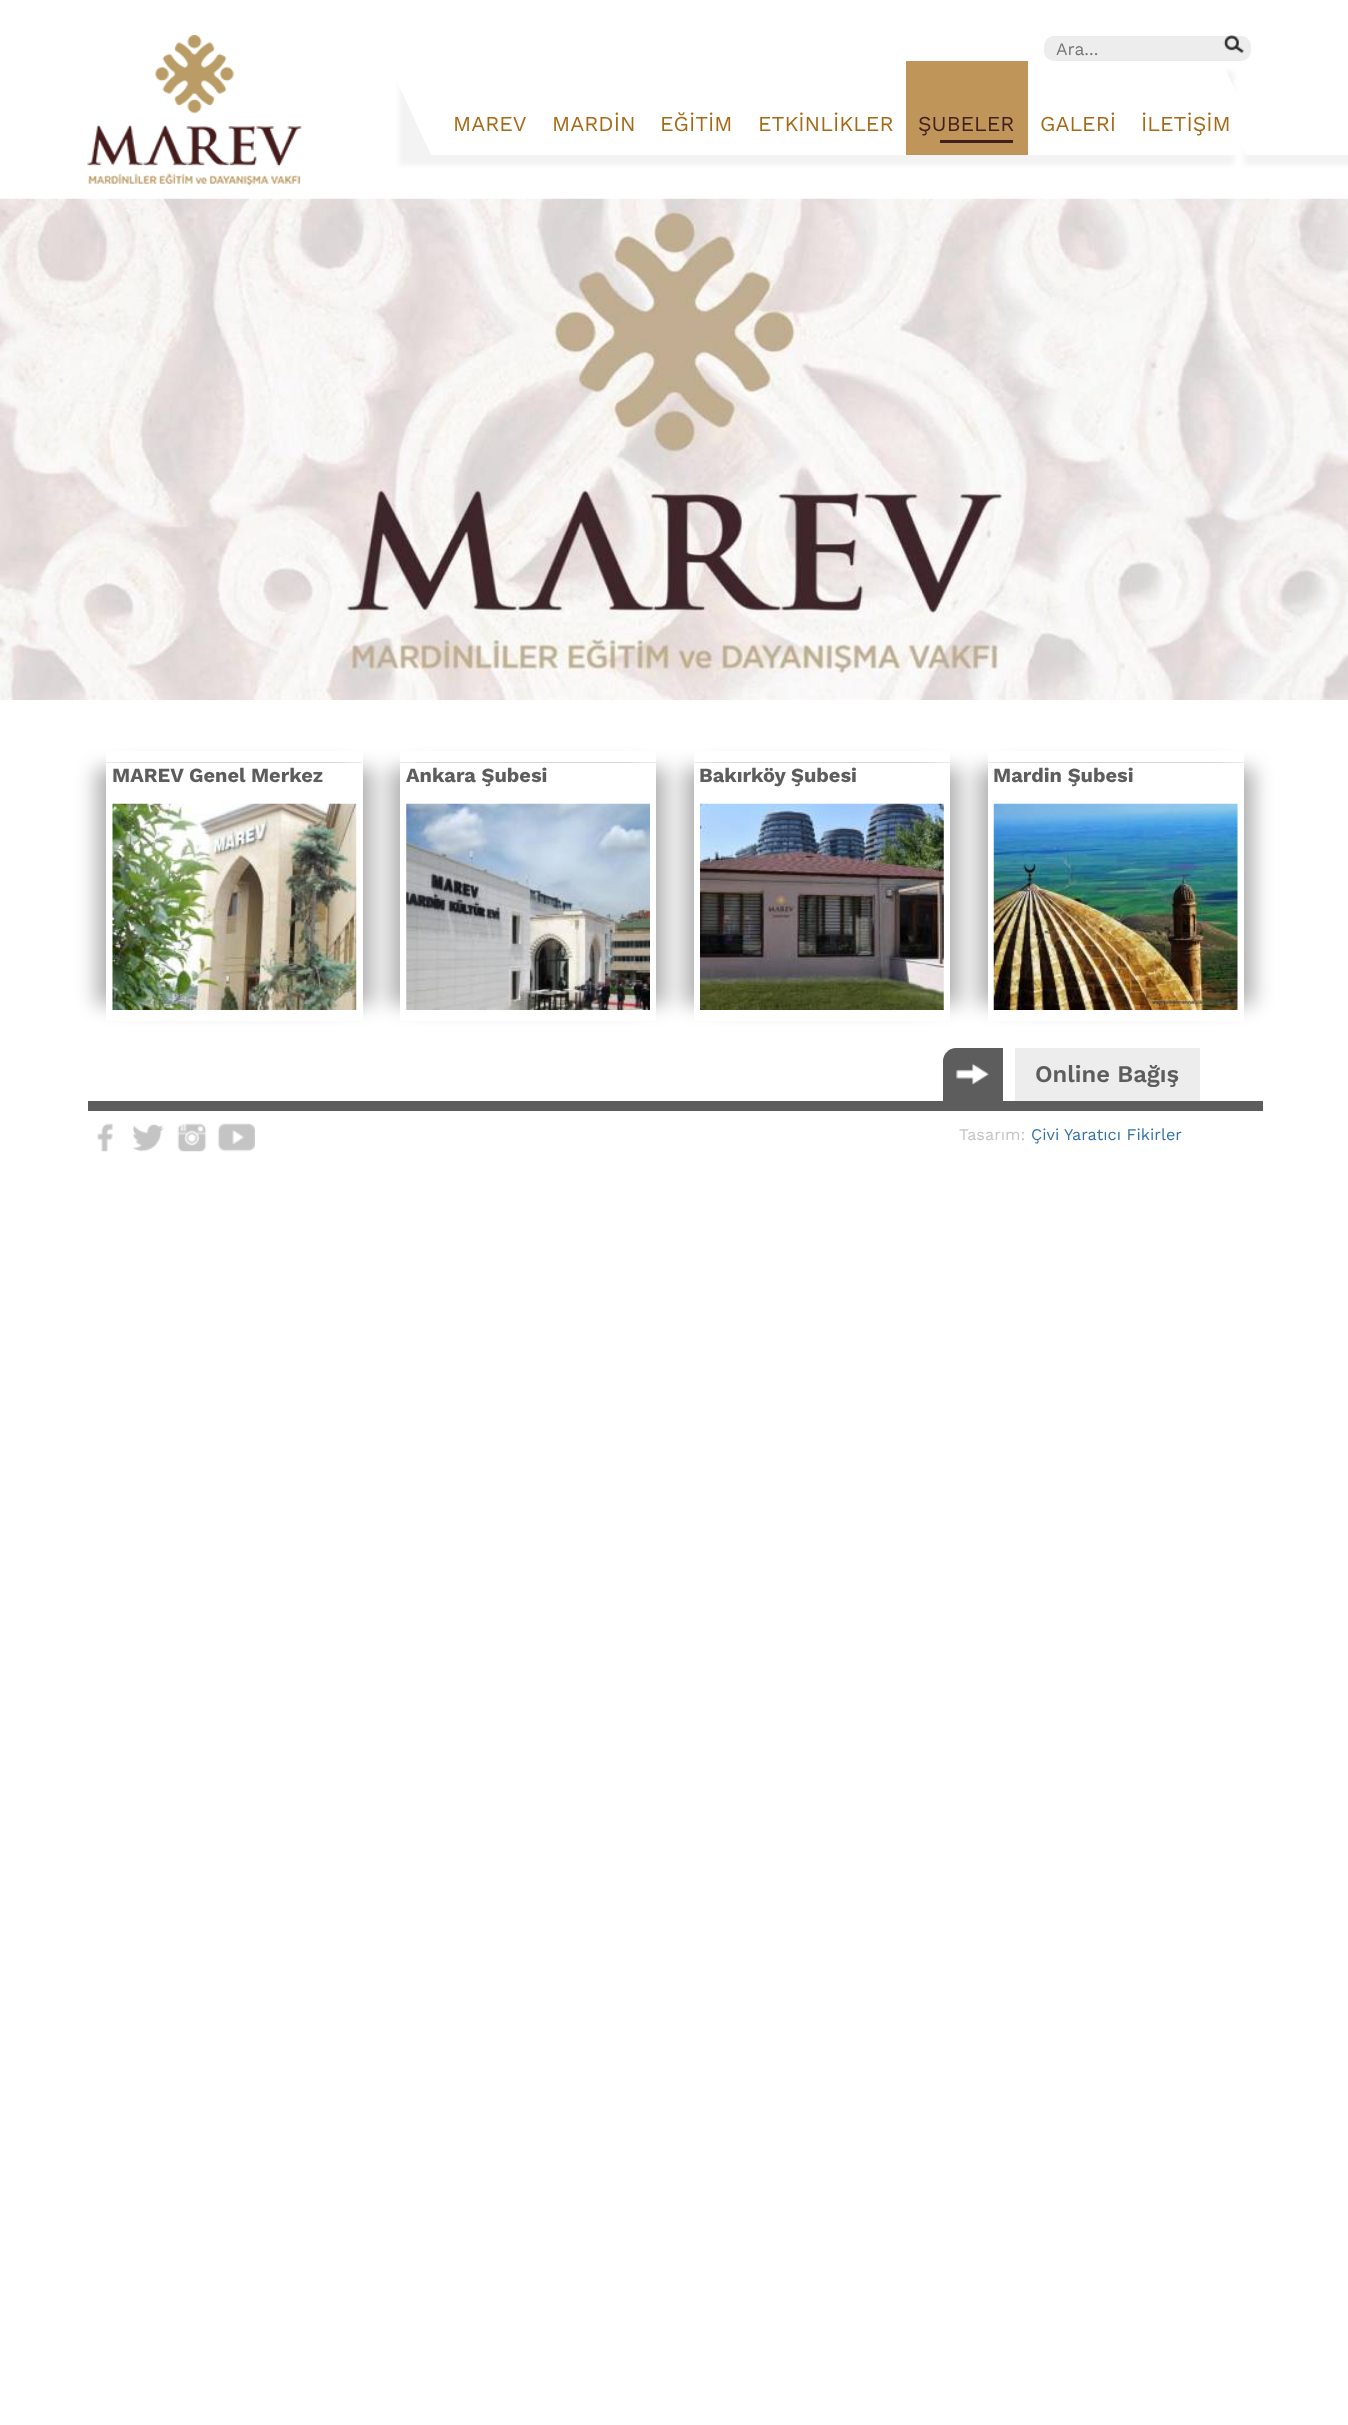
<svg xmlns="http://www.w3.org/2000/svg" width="1348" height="2425">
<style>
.a{font:17.5px Work Sans;fill:#757575}
.b{font:21.25px Work Sans;fill:#a66814}
.c{font:21.25px Work Sans;fill:#411f1e}
.d{font:bold 20px Work Sans;fill:#5d5d5d}
.e{font:600 23.75px Work Sans;fill:#5d5d5d}
.f{font:16.25px Work Sans;fill:#c4c4c4}
.g{font:16.25px Work Sans;fill:#3071a9}
</style>
<defs>
<clipPath id="clip1"><path d="M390 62h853v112h-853zm-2.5-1h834l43.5 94h-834z" clip-rule="evenodd"/></clipPath>
<clipPath id="clip2"><path d="M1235 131h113v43h-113zm-.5-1h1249l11.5 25h-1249z" clip-rule="evenodd"/></clipPath>
<clipPath id="clip3"><path d="M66 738h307v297h-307zm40 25h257v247h-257z" clip-rule="evenodd"/></clipPath>
<clipPath id="clip4"><path d="M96 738h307v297h-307zm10 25h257v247h-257z" clip-rule="evenodd"/></clipPath>
<clipPath id="clip5"><path d="M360 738h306v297h-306zm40 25h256v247h-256z" clip-rule="evenodd"/></clipPath>
<clipPath id="clip6"><path d="M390 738h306v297h-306zm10 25h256v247h-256z" clip-rule="evenodd"/></clipPath>
<clipPath id="clip7"><path d="M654 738h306v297h-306zm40 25h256v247h-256z" clip-rule="evenodd"/></clipPath>
<clipPath id="clip8"><path d="M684 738h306v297h-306zm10 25h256v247h-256z" clip-rule="evenodd"/></clipPath>
<clipPath id="clip9"><path d="M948 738h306v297h-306zm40 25h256v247h-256z" clip-rule="evenodd"/></clipPath>
<clipPath id="clip10"><path d="M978 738h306v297h-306zm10 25h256v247h-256z" clip-rule="evenodd"/></clipPath>
</defs>
<rect width="100%" height="100%" fill="#fff"/>
<image href="1.png" x="87" y="35" width="215" height="150"/>
<rect fill="#ededed" x="1044" y="36" width="207" height="25" rx="10"/>
<image href="2.png" x="1223" y="35" width="21" height="19"/>
<g clip-path="url(#clip1)">
<path fill="#f3f3f3" filter="blur(2.5px)" d="M399 71h835v94H399z"/>
</g>
<path fill="#bf955a" d="M906 61h122v94H906z"/>
<path fill="#411f1e" d="M940 140h73v3H940z"/>
<g clip-path="url(#clip2)">
<path fill="#f3f3f3" filter="blur(2.5px)" d="M1244 140h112v25H1244z"/>
</g>
<image href="3.png" x="0" y="198" width="1348" height="502"/>
<g clip-path="url(#clip3)">
<path fill="#0000004d" filter="blur(9.5px)" d="M96 768h247v237H96z"/>
</g>
<g clip-path="url(#clip4)">
<path fill="#0000004d" filter="blur(9.5px)" d="M126 768h247v237H126z"/>
</g>
<path fill="#fff" d="M106 751v248v-237h256v237h1v-248z"/>
<path fill="#fff" d="M106 774v247h257v-247h-1v236h-256z"/>
<image href="4.png" x="112" y="803" width="245" height="207"/>
<g clip-path="url(#clip5)">
<path fill="#0000004d" filter="blur(9.5px)" d="M390 768h246v237H390z"/>
</g>
<g clip-path="url(#clip6)">
<path fill="#0000004d" filter="blur(9.5px)" d="M420 768h246v237H420z"/>
</g>
<path fill="#fff" d="M400 751h256v11H400z"/>
<path fill="#fff" d="M400 1010h256v11H400z"/>
<image href="5.png" x="406" y="803" width="244" height="207"/>
<g clip-path="url(#clip7)">
<path fill="#0000004d" filter="blur(9.5px)" d="M684 768h246v237H684z"/>
</g>
<g clip-path="url(#clip8)">
<path fill="#0000004d" filter="blur(9.5px)" d="M714 768h246v237H714z"/>
</g>
<path fill="#fff" d="M694 751h256v11H694z"/>
<path fill="#fff" d="M694 1010h256v11H694z"/>
<image href="6.png" x="700" y="803" width="244" height="207"/>
<g clip-path="url(#clip9)">
<path fill="#0000004d" filter="blur(9.5px)" d="M978 768h246v237H978z"/>
</g>
<g clip-path="url(#clip10)">
<path fill="#0000004d" filter="blur(9.5px)" d="M1008 768h246v237H1008z"/>
</g>
<path fill="#fff" d="M988 751v11h256v237v-248z"/>
<path fill="#fff" d="M988 1010v11h256v-247v236z"/>
<image href="7.png" x="993" y="803" width="245" height="207"/>
<path fill="#5d5d5d" d="M956 1048h47v53h-60v-40c0-7 6-13 13-13z"/>
<image href="8.png" x="956" y="1063" width="33" height="22"/>
<path fill="#ededed" d="M1015 1048h185v53H1015z"/>
<path fill="#5d5d5d" d="M88 1101h1175v10H88z"/>
<image href="9.png" x="97" y="1123" width="16" height="29"/>
<image href="10.png" x="132" y="1124" width="32" height="28"/>
<image href="11.png" x="177" y="1123" width="30" height="29"/>
<image href="12.png" x="217" y="1123" width="38" height="29"/>
<text class="a" x="1056" y="55">Ara...</text>
<text class="b" x="453" y="131">MAREV</text>
<text class="b" x="552" y="131">MARDİN</text>
<text class="b" x="660" y="131">EĞİTİM</text>
<text class="b" x="758" y="131">ETKİNLİKLER</text>
<text class="c" x="918" y="131">ŞUBELER</text>
<text class="b" x="1040" y="131">GALERİ</text>
<text class="b" x="1141" y="131">İLETİŞİM</text>
<text class="d" x="112" y="782">MAREV Genel Merkez</text>
<text class="d" x="406" y="782">Ankara Şubesi</text>
<text class="d" x="699" y="782">Bakırköy Şubesi</text>
<text class="d" x="993" y="782">Mardin Şubesi</text>
<text class="e" x="1035" y="1082">Online Bağış</text>
<text class="f" x="959" y="1140">Tasarım:</text>
<text class="g" x="1031" y="1140">Çivi Yaratıcı Fikirler</text>
</svg>
